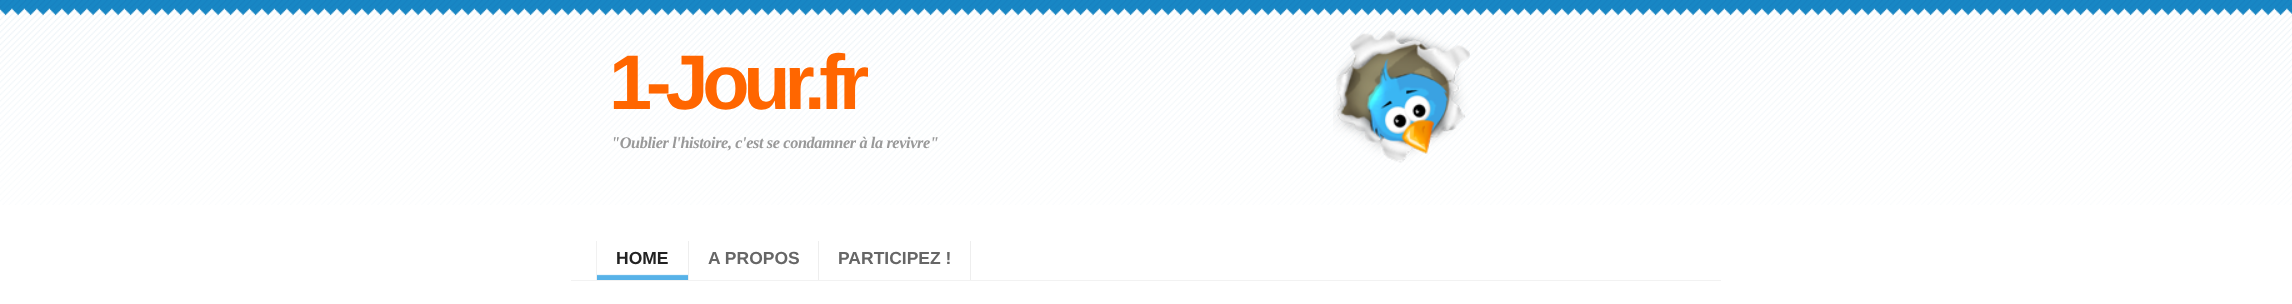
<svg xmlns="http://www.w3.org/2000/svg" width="2292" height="304">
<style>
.a{font:bold 77.5px Liberation Sans;letter-spacing:-6.25px;fill:#f60}
.b{font:italic bold 16.25px Liberation Serif;letter-spacing:-0.38px;fill:#999}
.c{font:bold 17.5px Liberation Sans;fill:#222}
.d{font:bold 17.5px Liberation Sans;fill:#666}
</style>
<rect width="100%" height="100%" fill="#fff"/>
<image href="1.png" x="0" y="0" width="2292" height="205"/>
<image href="2.png" x="1333" y="30" width="137" height="133"/>
<path fill="#f2f2f2" d="M571 280h1150v1H571z"/>
<image href="3.png" x="597" y="274" width="91" height="6"/>
<path fill="#eee" d="M688 241h1v39H688z"/>
<path fill="#f1f1f1" d="M596 241h1v39H596z"/>
<path fill="#eee" d="M818 241h1v39H818z"/>
<path fill="#eee" d="M970 241h1v39H970z"/>
<text class="a" x="609" y="109">1-Jour.fr</text>
<text class="b" x="611" y="148">"Oublier l'histoire, c'est se condamner à la revivre"</text>
<text class="c" x="616" y="264">HOME</text>
<text class="d" x="708" y="264">A PROPOS</text>
<text class="d" x="838" y="264">PARTICIPEZ !</text>
</svg>
